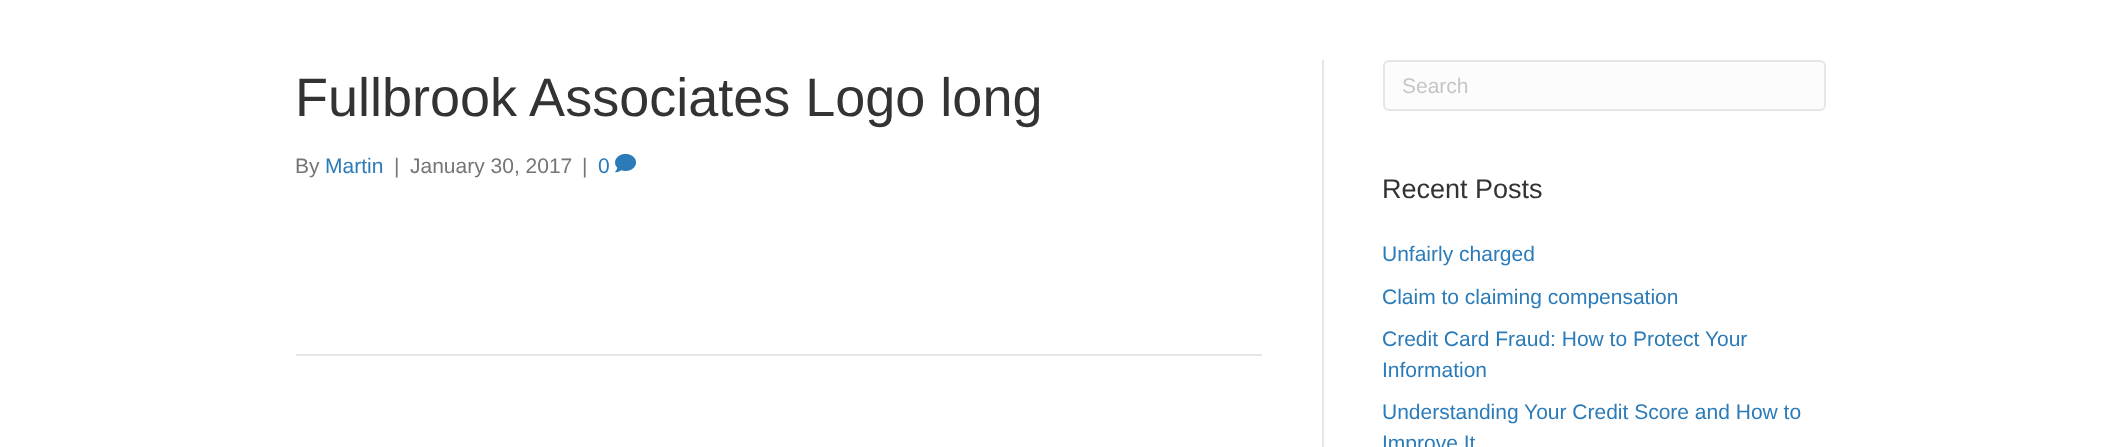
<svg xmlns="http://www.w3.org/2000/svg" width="2119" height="447">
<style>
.a{font:54px Liberation Sans;fill:#333}
.b{font:21px Liberation Sans;fill:#757575}
.c{font:21px Liberation Sans;fill:#2b7bb9}
.d{font:21px Liberation Sans;fill:#c6c6c6}
.e{font:27px Liberation Sans;fill:#333}
</style>
<rect width="100%" height="100%" fill="#fff"/>
<path fill="#e6e6e6" d="M1322 60h2v387H1322z"/>
<image href="1.png" x="615" y="153" width="21" height="20"/>
<path fill="#e6e6e6" d="M296 354h966v2H296z"/>
<rect fill="#fcfcfc" stroke="#e6e6e6" stroke-width="2" x="1384" y="61" width="441" height="49" rx="5"/>
<text class="a" x="295" y="116">Fullbrook Associates Logo long</text>
<text class="b" x="295" y="173">By</text>
<text class="c" x="325" y="173">Martin</text>
<text class="b" x="394" y="173">|</text>
<text class="b" x="410" y="173">January 30, 2017</text>
<text class="b" x="582" y="173">|</text>
<text class="c" x="598" y="173">0</text>
<text class="d" x="1402" y="93">Search</text>
<text class="e" x="1382" y="198">Recent Posts</text>
<text class="c" x="1382" y="261">Unfairly charged</text>
<text class="c" x="1382" y="304">Claim to claiming compensation</text>
<text class="c" x="1382" y="346">Credit Card Fraud: How to Protect Your</text>
<text class="c" x="1382" y="377">Information</text>
<text class="c" x="1382" y="419">Understanding Your Credit Score and How to</text>
<text class="c" x="1382" y="450">Improve It</text>
</svg>
